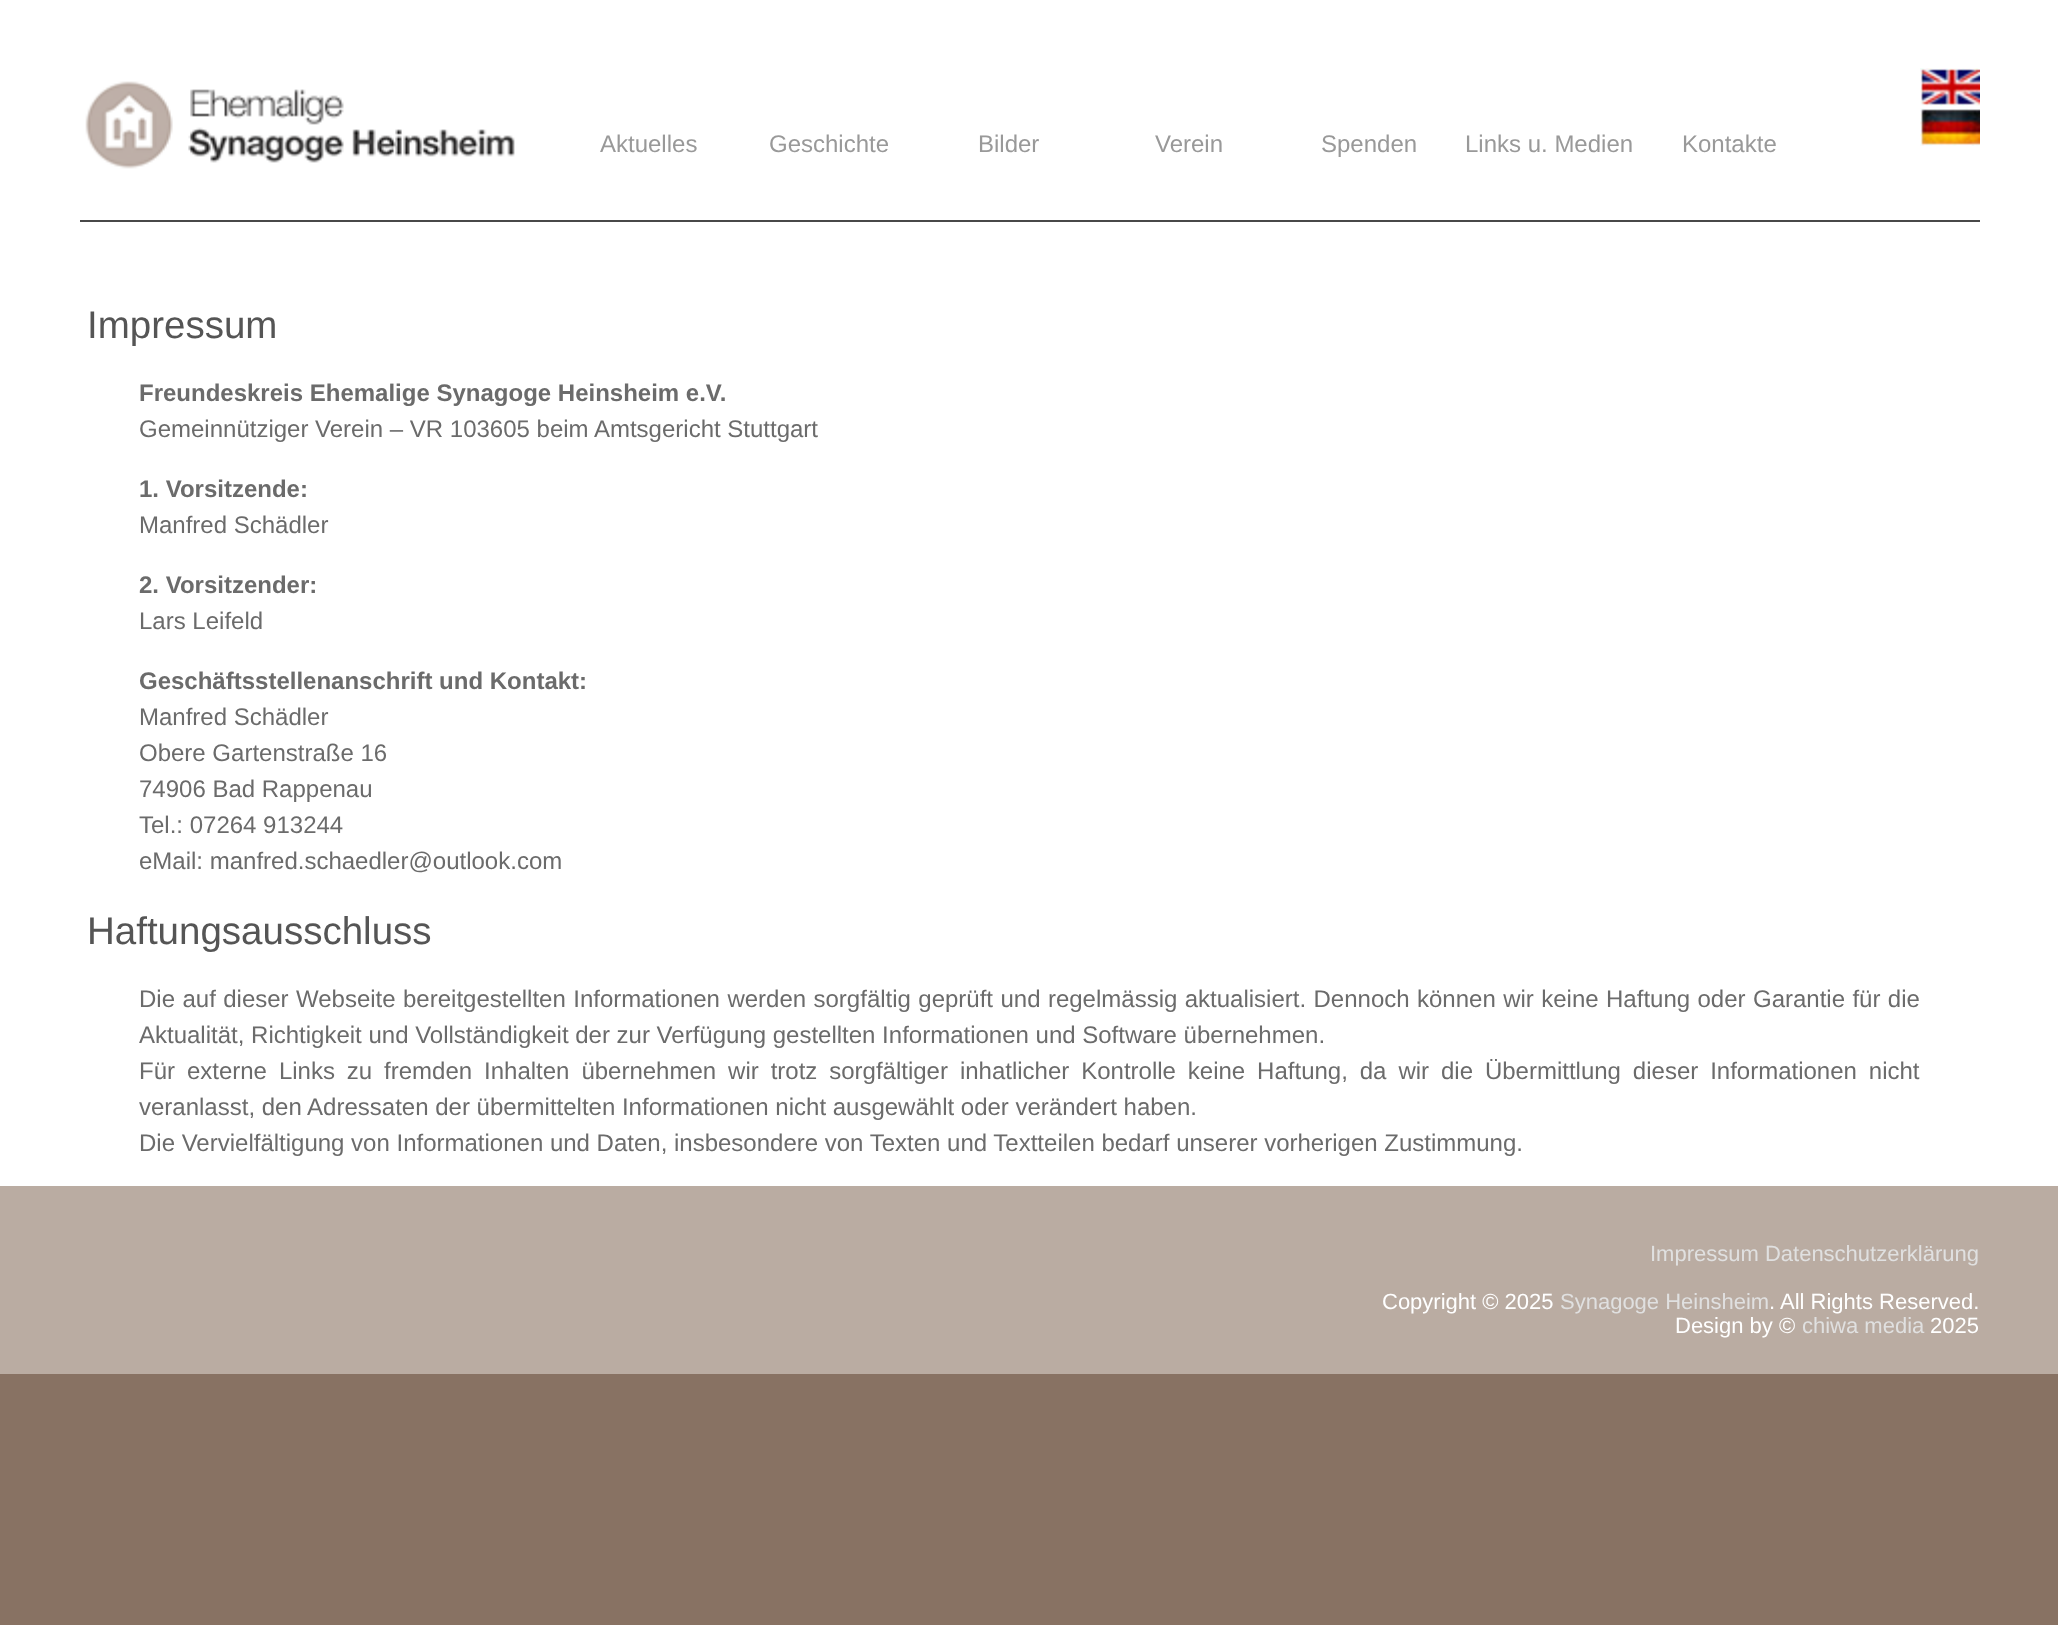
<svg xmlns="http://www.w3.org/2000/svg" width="2058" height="1625">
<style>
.a{font:24px Liberation Sans;fill:#999}
.b{font:38.5px Liberation Sans;fill:#555}
.c{font:bold 24px Liberation Sans;fill:#6b6b6b}
.d{font:24px Liberation Sans;fill:#6b6b6b}
.e{font:22px Liberation Sans;fill:#e0e0e0}
.f{font:22px Liberation Sans;fill:#fff}
</style>
<rect width="100%" height="100%" fill="#887263"/>
<path fill="#fff" d="M0 0h2058v1186H0z"/>
<image href="1.png" x="85" y="81" width="430" height="88"/>
<image href="2.png" x="1920" y="68" width="60" height="38"/>
<image href="3.png" x="1920" y="108" width="60" height="38"/>
<path fill="#484848" d="M80 220h1900v2H80z"/>
<path fill="#baaca2" d="M0 1186h2058v188H0z"/>
<text class="a" x="600" y="152">Aktuelles</text>
<text class="a" x="769" y="152">Geschichte</text>
<text class="a" x="978" y="152">Bilder</text>
<text class="a" x="1155" y="152">Verein</text>
<text class="a" x="1321" y="152">Spenden</text>
<text class="a" x="1465" y="152">Links u. Medien</text>
<text class="a" x="1682" y="152">Kontakte</text>
<text class="b" x="87" y="338">Impressum</text>
<text class="c" x="139" y="401">Freundeskreis Ehemalige Synagoge Heinsheim e.V.</text>
<text class="d" x="139" y="437">Gemeinnütziger Verein – VR 103605 beim Amtsgericht Stuttgart</text>
<text class="c" x="139" y="497">1. Vorsitzende:</text>
<text class="d" x="139" y="533">Manfred Schädler</text>
<text class="c" x="139" y="593">2. Vorsitzender:</text>
<text class="d" x="139" y="629">Lars Leifeld</text>
<text class="c" x="139" y="689">Geschäftsstellenanschrift und Kontakt:</text>
<text class="d" x="139" y="725">Manfred Schädler</text>
<text class="d" x="139" y="761">Obere Gartenstraße 16</text>
<text class="d" x="139" y="797">74906 Bad Rappenau</text>
<text class="d" x="139" y="833">Tel.: 07264 913244</text>
<text class="d" x="139" y="869">eMail: manfred.schaedler@outlook.com</text>
<text class="b" x="87" y="944">Haftungsausschluss</text>
<text class="d" x="139" y="1007" word-spacing="0.75">Die auf dieser Webseite bereitgestellten Informationen werden sorgfältig geprüft und regelmässig aktualisiert. Dennoch können wir keine Haftung oder Garantie für die</text>
<text class="d" x="139" y="1043">Aktualität, Richtigkeit und Vollständigkeit der zur Verfügung gestellten Informationen und Software übernehmen.</text>
<text class="d" x="139" y="1079" word-spacing="5.25">Für externe Links zu fremden Inhalten übernehmen wir trotz sorgfältiger inhatlicher Kontrolle keine Haftung, da wir die Übermittlung dieser Informationen nicht</text>
<text class="d" x="139" y="1115">veranlasst, den Adressaten der übermittelten Informationen nicht ausgewählt oder verändert haben.</text>
<text class="d" x="139" y="1151">Die Vervielfältigung von Informationen und Daten, insbesondere von Texten und Textteilen bedarf unserer vorherigen Zustimmung.</text>
<text class="e" x="1650" y="1261">Impressum Datenschutzerklärung</text>
<text class="f" x="1382" y="1309">Copyright © 2025</text>
<text class="e" x="1560" y="1309">Synagoge Heinsheim</text>
<text class="f" x="1769" y="1309">. All Rights Reserved.</text>
<text class="f" x="1675" y="1333">Design by ©</text>
<text class="e" x="1802" y="1333">chiwa media</text>
<text class="f" x="1930" y="1333">2025</text>
</svg>
